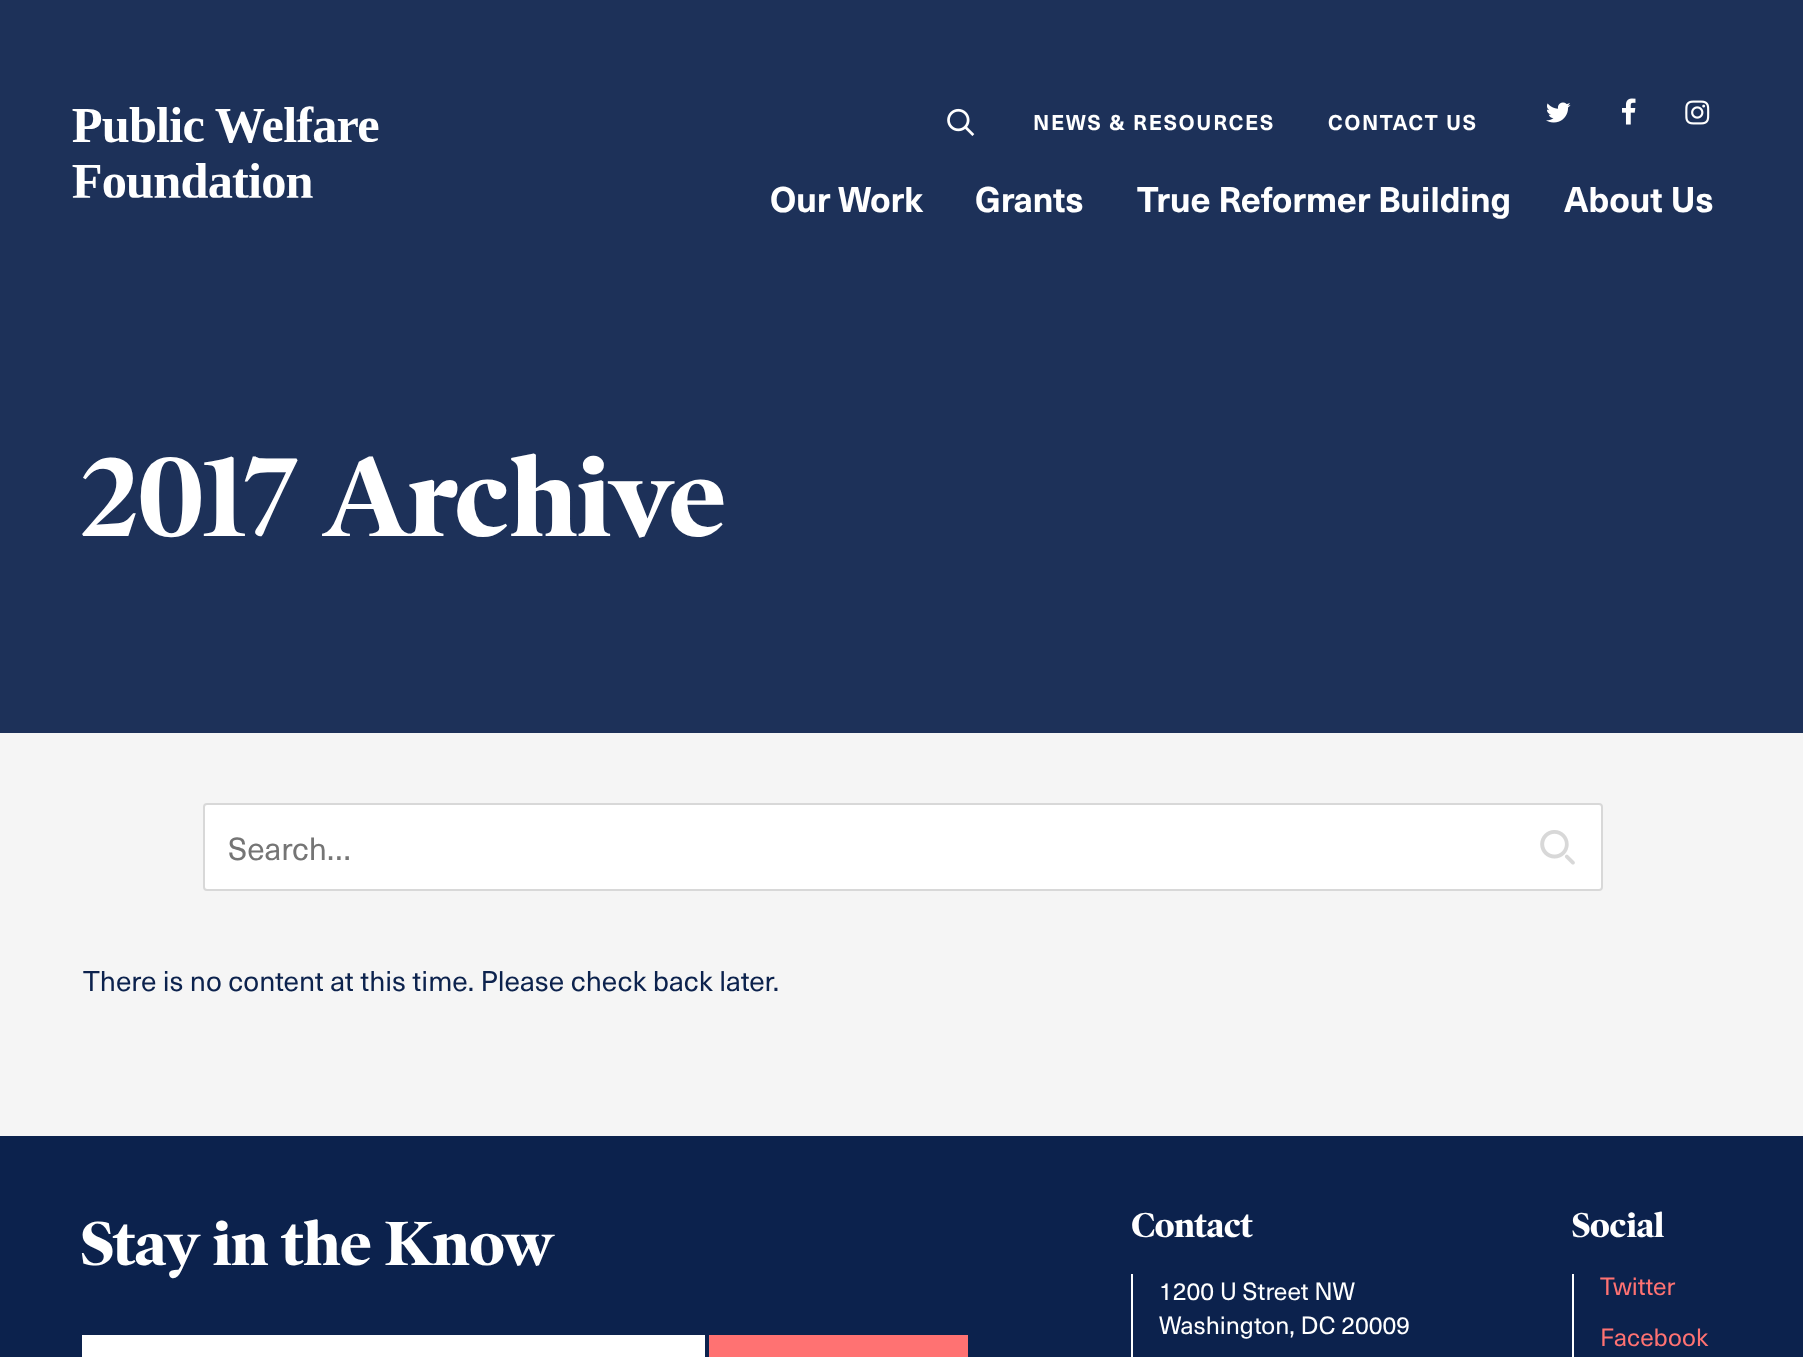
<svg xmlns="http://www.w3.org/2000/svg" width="1803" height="1357">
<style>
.a{font:bold 21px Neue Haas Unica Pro;letter-spacing:1.75px;fill:#fff}
.b{font:bold 35px Neue Haas Unica Pro;letter-spacing:-0.25px;fill:#fff}
.c{font:bold 113.75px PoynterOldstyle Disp;fill:#fff}
.d{font:31.5px Neue Haas Unica Pro;fill:#757575}
.e{font:28px Neue Haas Unica Pro;fill:#0c224d}
.f{font:bold 63px PoynterOldstyle Disp;letter-spacing:-0.4px;fill:#fff}
.g{font:bold 35px PoynterOldstyle Disp;letter-spacing:-0.25px;fill:#fff}
.h{font:24.5px Neue Haas Unica Pro;fill:#fff}
.i{font:24.5px Neue Haas Unica Pro;fill:#ff7272}
</style>
<rect width="100%" height="100%" fill="#0c224d"/>
<path fill="#1d3159" d="M0 0h1803v733H0z"/>
<image href="1.png" x="947" y="108" width="28" height="28"/>
<image href="2.png" x="1546" y="102" width="25" height="21"/>
<image href="3.png" x="1622" y="98" width="14" height="27"/>
<image href="4.png" x="1685" y="100" width="25" height="25"/>
<image href="5.png" x="72" y="106" width="307" height="92"/>
<path fill="#f5f5f5" d="M0 733h1803v403H0z"/>
<rect fill="#fff" stroke="#d8d8d8" stroke-width="2" x="204" y="804" width="1398" height="86" rx="3"/>
<image href="6.png" x="1540" y="830" width="35" height="35"/>
<path fill="#fff" d="M82 1335h623v22H82z"/>
<path fill="#ff7272" d="M709 1335h259v22H709z"/>
<path fill="#fff" d="M1131 1274h2v83H1131z"/>
<path fill="#fff" d="M1572 1274h2v83H1572z"/>
<text class="a" x="1033" y="130">NEWS &amp; RESOURCES</text>
<text class="a" x="1328" y="130">CONTACT US</text>
<text class="b" x="770" y="212">Our Work</text>
<text class="b" x="975" y="212">Grants</text>
<text class="b" x="1137" y="212">True Reformer Building</text>
<text class="b" x="1564" y="212">About Us</text>
<text class="c" x="81" y="536">2017 Archive</text>
<text class="d" x="228" y="860">Search…</text>
<text class="e" x="83" y="991">There is no content at this time. Please check back later.</text>
<text class="f" x="81" y="1265">Stay in the Know</text>
<text class="g" x="1131" y="1237">Contact</text>
<text class="h" x="1159" y="1300">1200 U Street NW</text>
<text class="h" x="1159" y="1334">Washington, DC 20009</text>
<text class="g" x="1572" y="1237">Social</text>
<text class="i" x="1600" y="1295">Twitter</text>
<text class="i" x="1600" y="1346">Facebook</text>
</svg>
